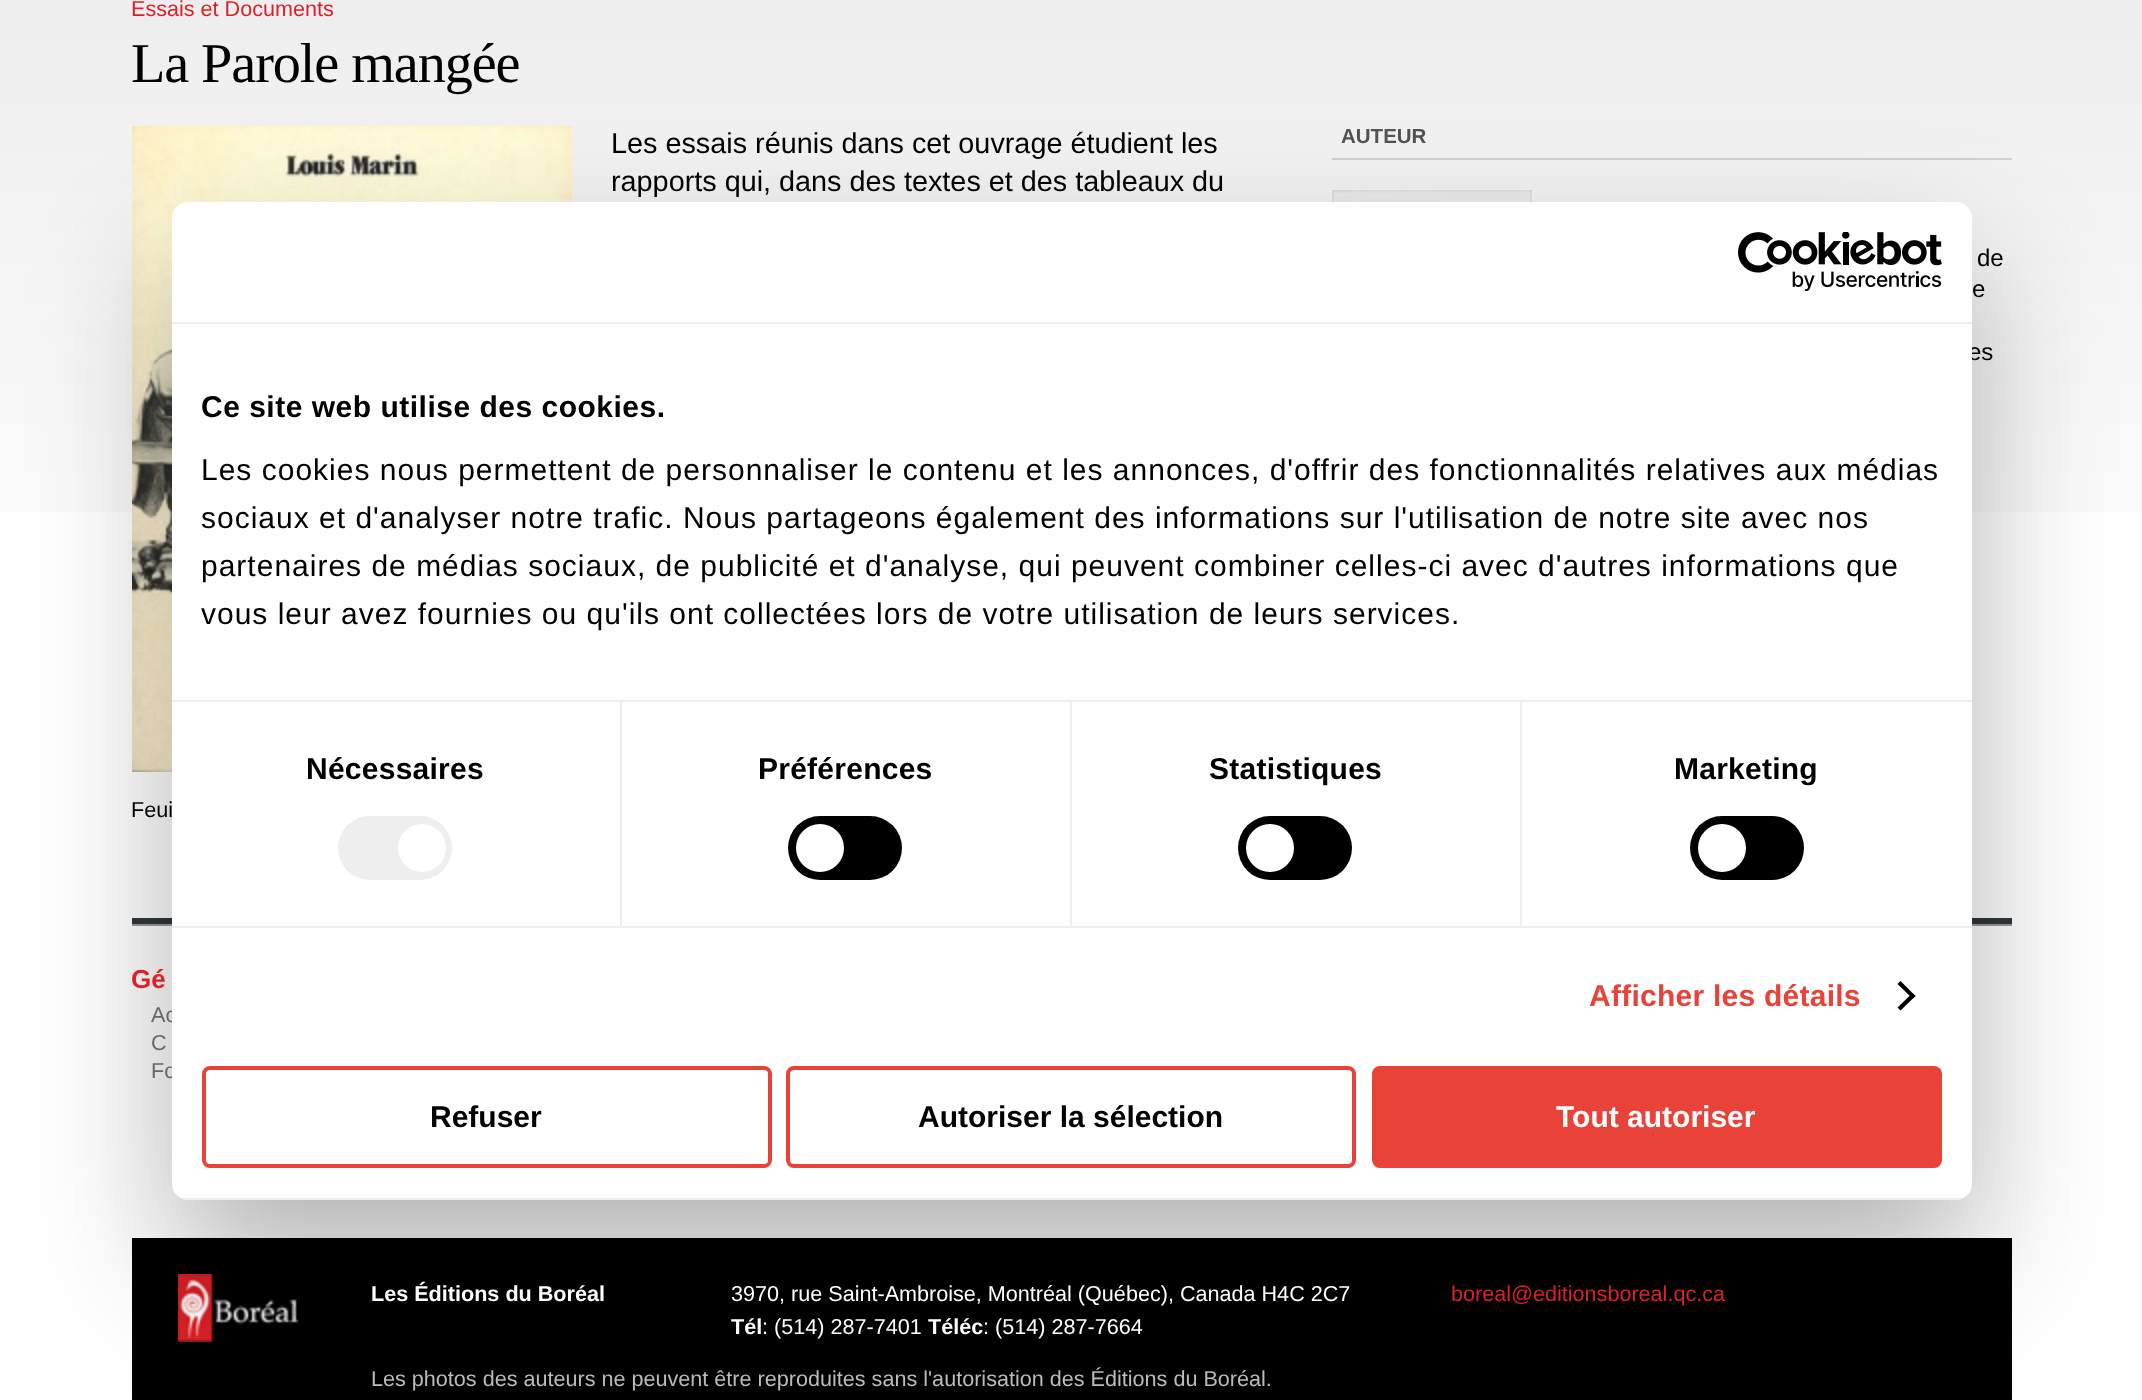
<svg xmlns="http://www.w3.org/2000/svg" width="2142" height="1400">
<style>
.a{font:21.6px Liberation Sans;fill:#da2128}
.b{font:56.25px Liberation Serif;letter-spacing:-1.1px;fill:#000}
.c{font:28.8px Liberation Sans;fill:#000}
.d{font:21.6px Liberation Sans;fill:#000}
.e{font:bold 20.5px Liberation Sans;fill:#525252}
.f{font:24px Liberation Sans;fill:#000}
.g{font:bold 26px Liberation Sans;fill:#da2128}
.h{font:21.6px Liberation Sans;fill:#666}
.i{font:bold 21.6px Liberation Sans;fill:#fff}
.j{font:21.6px Liberation Sans;fill:#fff}
.k{font:21.6px Liberation Sans;fill:#bbb}
.l{font:bold 30px Liberation Sans;letter-spacing:0.5px;fill:#000}
.m{font:30px Liberation Sans;letter-spacing:1px;fill:#000}
.n{font:bold 30px Liberation Sans;letter-spacing:0.25px;fill:#000}
.o{font:bold 30px Liberation Sans;letter-spacing:0.25px;fill:#e94239}
.p{font:bold 30px Liberation Sans;fill:#000}
.q{font:bold 30px Liberation Sans;fill:#fff}
</style>
<defs>
<clipPath id="clip1"><rect x="172" y="202" width="1800" height="998" rx="16"/></clipPath>
</defs>
<rect width="100%" height="100%" fill="#fff"/>
<image href="1.png" x="0" y="0" width="2142" height="512"/>
<image href="2.png" x="132" y="126" width="440" height="646"/>
<path fill="#d0d2d2" d="M1332 158h680v2H1332z"/>
<image href="3.png" x="1332" y="190" width="200" height="12"/>
<path fill="#31383b" d="M132 918h1880v6H132z"/>
<path fill="#989c9d" d="M132 924h1880v2H132z"/>
<path fill="#000" d="M132 1238h1880v162H132z"/>
<image href="4.png" x="178" y="1274" width="121" height="68"/>
<rect fill="#0000004d" filter="blur(68px)" x="172" y="266" width="1800" height="998" rx="16"/>
<text class="a" x="131" y="16">Essais et Documents</text>
<text class="b" x="131" y="82">La Parole mangée</text>
<text class="c" x="611" y="153">Les essais réunis dans cet ouvrage étudient les</text>
<text class="c" x="611" y="191">rapports qui, dans des textes et des tableaux du</text>
<text class="d" x="131" y="817">Feui</text>
<text class="e" x="1341" y="143">AUTEUR</text>
<text class="f" x="1977" y="266">de</text>
<text class="f" x="1972" y="297">e</text>
<text class="f" x="1968" y="360">es</text>
<text class="g" x="131" y="988">Gé</text>
<text class="h" x="151" y="1022">Ac</text>
<text class="h" x="151" y="1050">C</text>
<text class="h" x="151" y="1078">Fo</text>
<text class="i" x="371" y="1301">Les Éditions du Boréal</text>
<text class="j" x="731" y="1301">3970, rue Saint-Ambroise, Montréal (Québec), Canada H4C 2C7</text>
<text class="i" x="731" y="1334">Tél</text>
<text class="j" x="762" y="1334">: (514) 287-7401</text>
<text class="i" x="928" y="1334">Téléc</text>
<text class="j" x="983" y="1334">: (514) 287-7664</text>
<text class="a" x="1451" y="1301">boreal@editionsboreal.qc.ca</text>
<text class="k" x="371" y="1386">Les photos des auteurs ne peuvent être reproduites sans l'autorisation des Éditions du Boréal.</text>
<rect fill="#fff" x="172" y="202" width="1800" height="998" rx="16"/>
<path fill="#eee" d="M172 322h1800v2H172z"/>
<image href="5.png" x="1738" y="232" width="204" height="60"/>
<path fill="#eee" d="M172 700h1800v2H172z"/>
<text class="l" x="201" y="417">Ce site web utilise des cookies.</text>
<text class="m" x="201" y="480">Les cookies nous permettent de personnaliser le contenu et les annonces, d'offrir des fonctionnalités relatives aux médias</text>
<text class="m" x="201" y="528">sociaux et d'analyser notre trafic. Nous partageons également des informations sur l'utilisation de notre site avec nos</text>
<text class="m" x="201" y="576">partenaires de médias sociaux, de publicité et d'analyse, qui peuvent combiner celles-ci avec d'autres informations que</text>
<text class="m" x="201" y="624">vous leur avez fournies ou qu'ils ont collectées lors de votre utilisation de leurs services.</text>
<path fill="#eee" d="M172 926h1800v2H172z"/>
<path fill="#eee" d="M620 702h2v224H620z"/>
<text class="n" x="306" y="779">Nécessaires</text>
<rect fill="#eee" x="338" y="816" width="114" height="64" rx="32"/>
<circle fill="#fff" cx="422" cy="848" r="24"/>
<path fill="#eee" d="M1070 702h2v224H1070z"/>
<text class="n" x="758" y="779">Préférences</text>
<rect fill="#000" x="788" y="816" width="114" height="64" rx="32"/>
<circle fill="#fff" cx="820" cy="848" r="24"/>
<path fill="#eee" d="M1520 702h2v224H1520z"/>
<text class="n" x="1209" y="779">Statistiques</text>
<rect fill="#000" x="1238" y="816" width="114" height="64" rx="32"/>
<circle fill="#fff" cx="1270" cy="848" r="24"/>
<text class="n" x="1674" y="779">Marketing</text>
<rect fill="#000" x="1690" y="816" width="114" height="64" rx="32"/>
<circle fill="#fff" cx="1722" cy="848" r="24"/>
<text class="o" x="1589" y="1006">Afficher les détails</text>
<path fill="#000" d="M1900.5 981l15 15l-3 2.5l-15-14.5z"/>
<path fill="#000" d="M1912.5 993l3 3l-15 14.5l-3-3z"/>
<g clip-path="url(#clip1)">
<path fill="#eee" d="M172 1198h1800v2H172z"/>
</g>
<rect fill="none" stroke="#e94239" stroke-width="4" x="204" y="1068" width="566" height="98" rx="6"/>
<text class="p" x="430" y="1127">Refuser</text>
<rect fill="none" stroke="#e94239" stroke-width="4" x="788" y="1068" width="566" height="98" rx="6"/>
<text class="p" x="918" y="1127">Autoriser la sélection</text>
<rect fill="#e94239" stroke="#e94239" stroke-width="4" x="1374" y="1068" width="566" height="98" rx="6"/>
<text class="q" x="1556" y="1127">Tout autoriser</text>
</svg>
